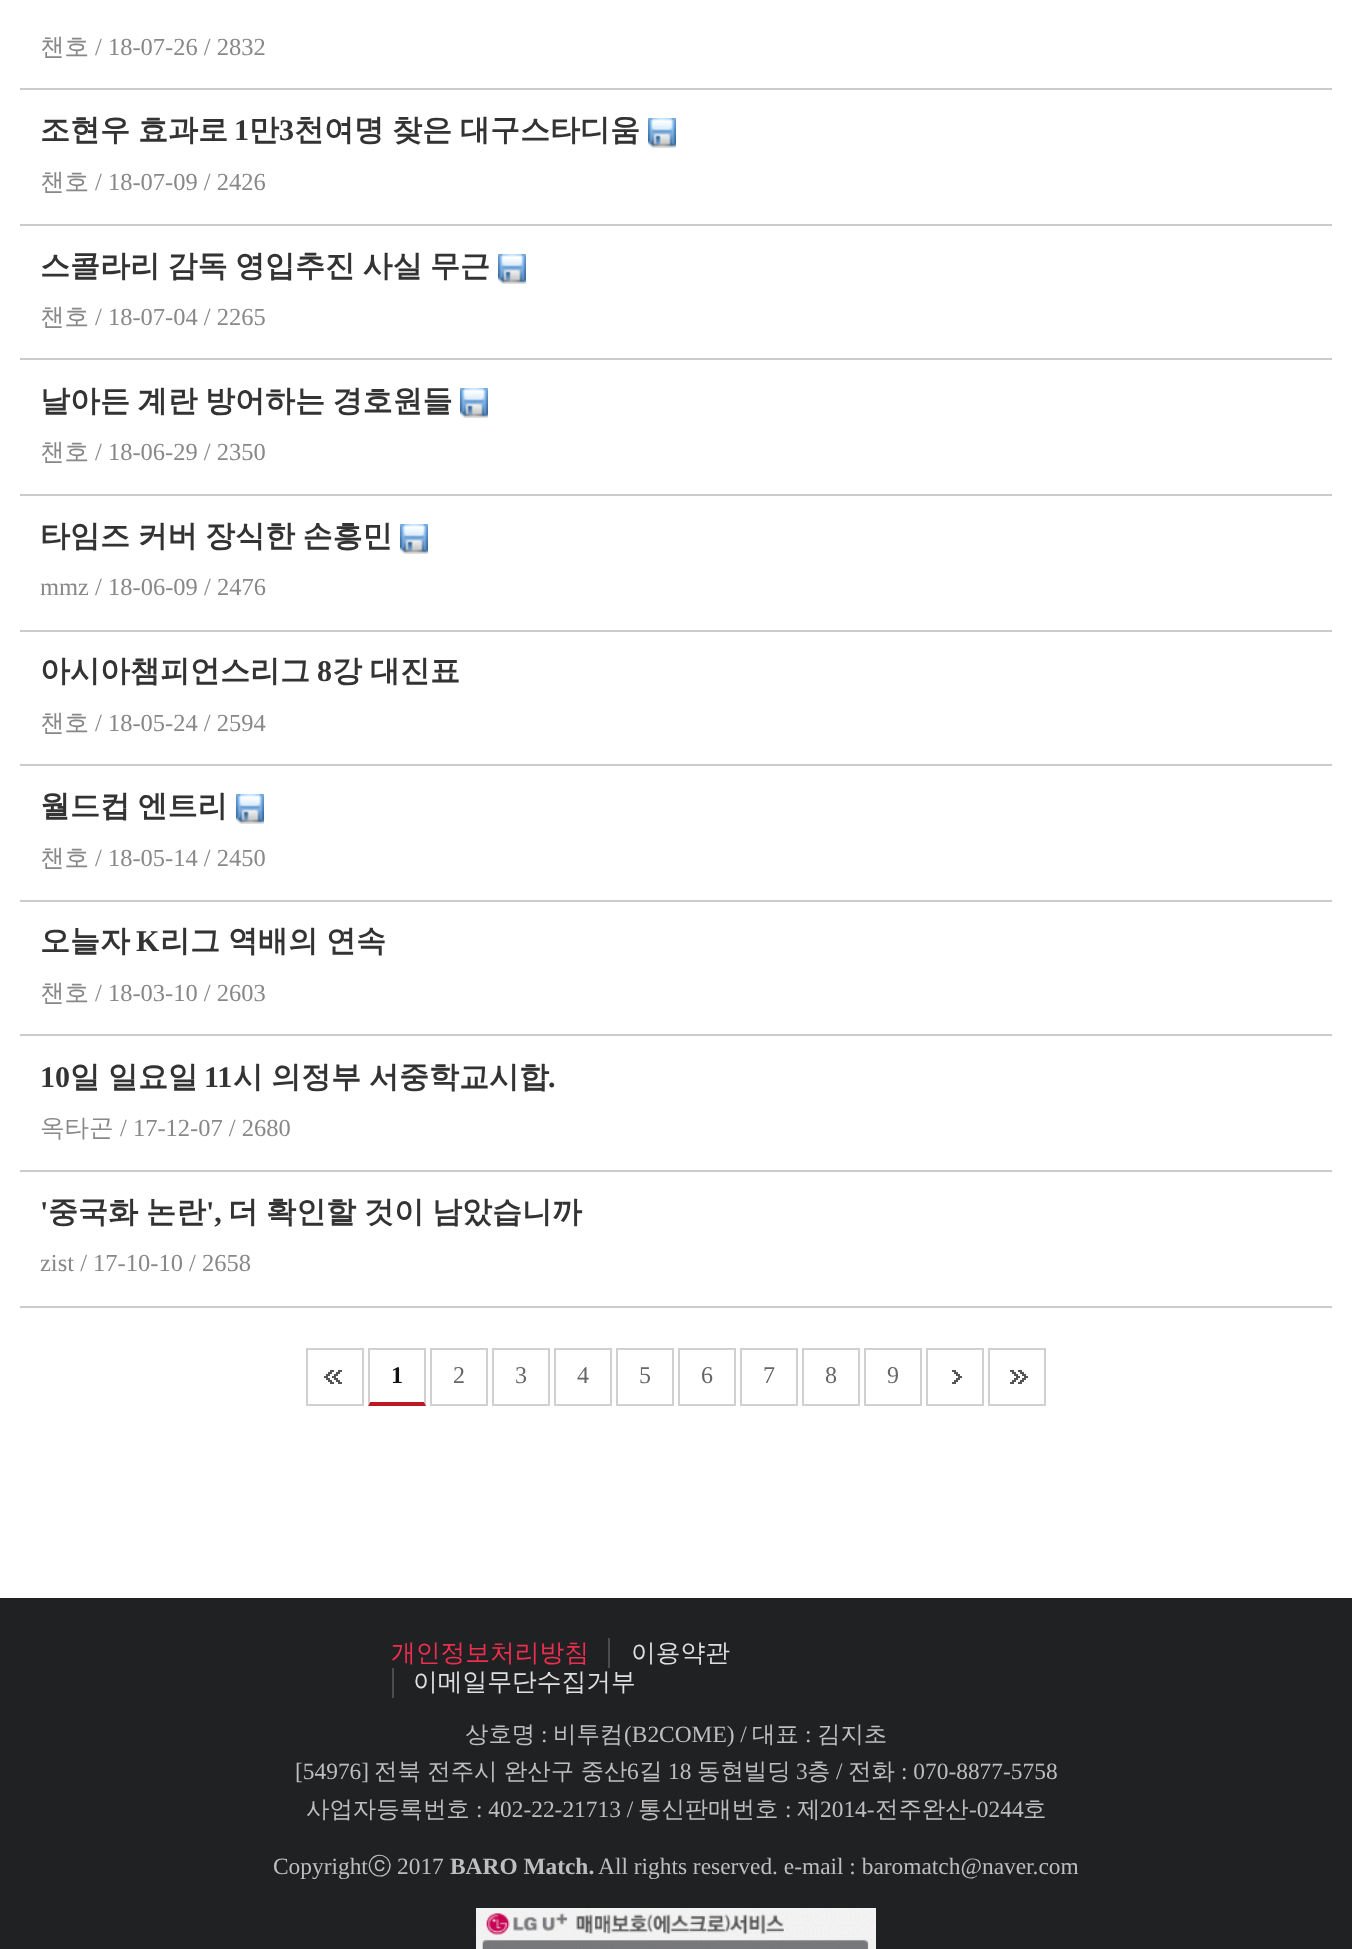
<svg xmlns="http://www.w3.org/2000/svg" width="1352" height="1949">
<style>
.a{font:500 24.5px WenQuanYi Zen Hei;fill:#888}
.b{font:24.5px Liberation Serif;fill:#888}
.c{font:bold 30px WenQuanYi Zen Hei;fill:#333}
.d{font:bold 30px Liberation Serif;fill:#333}
.e{font:bold 24px Liberation Serif;fill:#111}
.f{font:24px Liberation Serif;fill:#666}
.g{font:500 24.75px WenQuanYi Zen Hei;fill:#ee2e4e}
.h{font:500 24.75px WenQuanYi Zen Hei;fill:#dfdfdf}
.i{font:500 23.4px WenQuanYi Zen Hei;fill:#bebebe}
.j{font:23.4px Liberation Serif;fill:#bebebe}
.k{font:bold 23.4px Liberation Serif;fill:#bebebe}
</style>
<rect width="100%" height="100%" fill="#fff"/>
<path fill="#ccc" d="M20 88h1312v2H20z"/>
<path fill="#ccc" d="M20 224h1312v2H20z"/>
<image href="1.png" x="648" y="118" width="28" height="30"/>
<path fill="#ccc" d="M20 358h1312v2H20z"/>
<image href="1.png" x="498" y="254" width="28" height="30"/>
<path fill="#ccc" d="M20 494h1312v2H20z"/>
<image href="1.png" x="460" y="388" width="28" height="30"/>
<path fill="#ccc" d="M20 630h1312v2H20z"/>
<image href="1.png" x="400" y="524" width="28" height="30"/>
<path fill="#ccc" d="M20 764h1312v2H20z"/>
<path fill="#ccc" d="M20 900h1312v2H20z"/>
<image href="1.png" x="236" y="794" width="28" height="30"/>
<path fill="#ccc" d="M20 1034h1312v2H20z"/>
<path fill="#ccc" d="M20 1170h1312v2H20z"/>
<path fill="#ccc" d="M20 1306h1312v2H20z"/>
<image href="2.png" x="324" y="1370" width="18" height="14"/>
<path fill="none" stroke="#d0d0d0" stroke-width="2" d="M307 1349h56v56H307z"/>
<path fill="#d0d0d0" d="M368 1348h58v2H368z"/>
<path fill="#d0d0d0" d="M426 1348v58l-2-4v-52z"/>
<path fill="#be1824" d="M426 1406h-58l2-4h54z"/>
<path fill="#d0d0d0" d="M368 1406v-58l2 2v52z"/>
<path fill="none" stroke="#d0d0d0" stroke-width="2" d="M431 1349h56v56H431z"/>
<path fill="none" stroke="#d0d0d0" stroke-width="2" d="M493 1349h56v56H493z"/>
<path fill="none" stroke="#d0d0d0" stroke-width="2" d="M555 1349h56v56H555z"/>
<path fill="none" stroke="#d0d0d0" stroke-width="2" d="M617 1349h56v56H617z"/>
<path fill="none" stroke="#d0d0d0" stroke-width="2" d="M679 1349h56v56H679z"/>
<path fill="none" stroke="#d0d0d0" stroke-width="2" d="M741 1349h56v56H741z"/>
<path fill="none" stroke="#d0d0d0" stroke-width="2" d="M803 1349h56v56H803z"/>
<path fill="none" stroke="#d0d0d0" stroke-width="2" d="M865 1349h56v56H865z"/>
<image href="3.png" x="952" y="1370" width="10" height="14"/>
<path fill="none" stroke="#d0d0d0" stroke-width="2" d="M927 1349h56v56H927z"/>
<image href="4.png" x="1010" y="1370" width="18" height="14"/>
<path fill="none" stroke="#d0d0d0" stroke-width="2" d="M989 1349h56v56H989z"/>
<path fill="#202123" d="M0 1598h1352v351H0z"/>
<path fill="#4c4c4d" d="M608 1638h2v30H608z"/>
<path fill="#4c4c4d" d="M392 1668h2v30H392z"/>
<image href="5.png" x="476" y="1908" width="400" height="41"/>
<text class="a" x="40" y="55">챈호</text>
<text class="b" x="95" y="55">/ 18-07-26 / 2832</text>
<text class="c" x="40" y="140" word-spacing="-1">조현우 효과로</text>
<text class="d" x="234" y="140">1</text>
<text class="c" x="249" y="140">만</text>
<text class="d" x="279" y="140">3</text>
<text class="c" x="294" y="140" word-spacing="-1">천여명 찾은 대구스타디움</text>
<text class="a" x="40" y="190">챈호</text>
<text class="b" x="95" y="190">/ 18-07-09 / 2426</text>
<text class="c" x="40" y="276" word-spacing="-1.5">스콜라리 감독 영입추진 사실 무근</text>
<text class="a" x="40" y="325">챈호</text>
<text class="b" x="95" y="325">/ 18-07-04 / 2265</text>
<text class="c" x="40" y="411" word-spacing="-1.5">날아든 계란 방어하는 경호원들</text>
<text class="a" x="40" y="460">챈호</text>
<text class="b" x="95" y="460">/ 18-06-29 / 2350</text>
<text class="c" x="40" y="546" word-spacing="-1.5">타임즈 커버 장식한 손흥민</text>
<text class="b" x="40" y="595">mmz / 18-06-09 / 2476</text>
<text class="c" x="40" y="681">아시아챔피언스리그</text>
<text class="d" x="317" y="681">8</text>
<text class="c" x="332" y="681" word-spacing="-1">강 대진표</text>
<text class="a" x="40" y="731">챈호</text>
<text class="b" x="95" y="731">/ 18-05-24 / 2594</text>
<text class="c" x="40" y="816" word-spacing="-1.5">월드컵 엔트리</text>
<text class="a" x="40" y="866">챈호</text>
<text class="b" x="95" y="866">/ 18-05-14 / 2450</text>
<text class="c" x="40" y="951">오늘자</text>
<text class="d" x="136" y="951">K</text>
<text class="c" x="160" y="951" word-spacing="-1">리그 역배의 연속</text>
<text class="a" x="40" y="1001">챈호</text>
<text class="b" x="95" y="1001">/ 18-03-10 / 2603</text>
<text class="d" x="40" y="1087">10</text>
<text class="c" x="70" y="1087" word-spacing="-1">일 일요일</text>
<text class="d" x="204" y="1087">11</text>
<text class="c" x="233" y="1087" word-spacing="-1">시 의정부 서중학교시합</text>
<text class="d" x="548" y="1087">.</text>
<text class="a" x="40" y="1136">옥타곤</text>
<text class="b" x="120" y="1136">/ 17-12-07 / 2680</text>
<text class="d" x="40" y="1222">'</text>
<text class="c" x="48" y="1222" word-spacing="-1">중국화 논란</text>
<text class="d" x="206" y="1222">',</text>
<text class="c" x="228" y="1222" word-spacing="-1">더 확인할 것이 남았습니까</text>
<text class="b" x="40" y="1271">zist / 17-10-10 / 2658</text>
<text class="e" x="391" y="1383">1</text>
<text class="f" x="453" y="1383">2</text>
<text class="f" x="515" y="1383">3</text>
<text class="f" x="577" y="1383">4</text>
<text class="f" x="639" y="1383">5</text>
<text class="f" x="701" y="1383">6</text>
<text class="f" x="763" y="1383">7</text>
<text class="f" x="825" y="1383">8</text>
<text class="f" x="887" y="1383">9</text>
<text class="g" x="391" y="1661">개인정보처리방침</text>
<text class="h" x="631" y="1661">이용약관</text>
<text class="h" x="413" y="1690">이메일무단수집거부</text>
<text class="i" x="465" y="1742">상호명</text>
<text class="j" x="541" y="1742">:</text>
<text class="i" x="553" y="1742">비투컴</text>
<text class="j" x="624" y="1742">(B2COME) /</text>
<text class="i" x="752" y="1742">대표</text>
<text class="j" x="805" y="1742">:</text>
<text class="i" x="817" y="1742">김지초</text>
<text class="j" x="295" y="1779">[54976]</text>
<text class="i" x="374" y="1779" word-spacing="-0.5">전북 전주시 완산구 중산</text>
<text class="j" x="627" y="1779">6</text>
<text class="i" x="639" y="1779">길</text>
<text class="j" x="668" y="1779">18</text>
<text class="i" x="697" y="1779">동현빌딩</text>
<text class="j" x="796" y="1779">3</text>
<text class="i" x="807" y="1779">층</text>
<text class="j" x="836" y="1779">/</text>
<text class="i" x="848" y="1779">전화</text>
<text class="j" x="901" y="1779">: 070-8877-5758</text>
<text class="i" x="306" y="1817">사업자등록번호</text>
<text class="j" x="476" y="1817">: 402-22-21713 /</text>
<text class="i" x="638" y="1817">통신판매번호</text>
<text class="j" x="785" y="1817">:</text>
<text class="i" x="797" y="1817">제</text>
<text class="j" x="820" y="1817">2014-</text>
<text class="i" x="875" y="1817">전주완산</text>
<text class="j" x="969" y="1817">-0244</text>
<text class="i" x="1023" y="1817">호</text>
<text class="j" x="273" y="1874">Copyright</text>
<text class="i" x="368" y="1874">ⓒ</text>
<text class="j" x="397" y="1874">2017</text>
<text class="k" x="450" y="1874">BARO Match.</text>
<text class="j" x="598" y="1874">All rights reserved. e-mail : baromatch@naver.com</text>
</svg>
